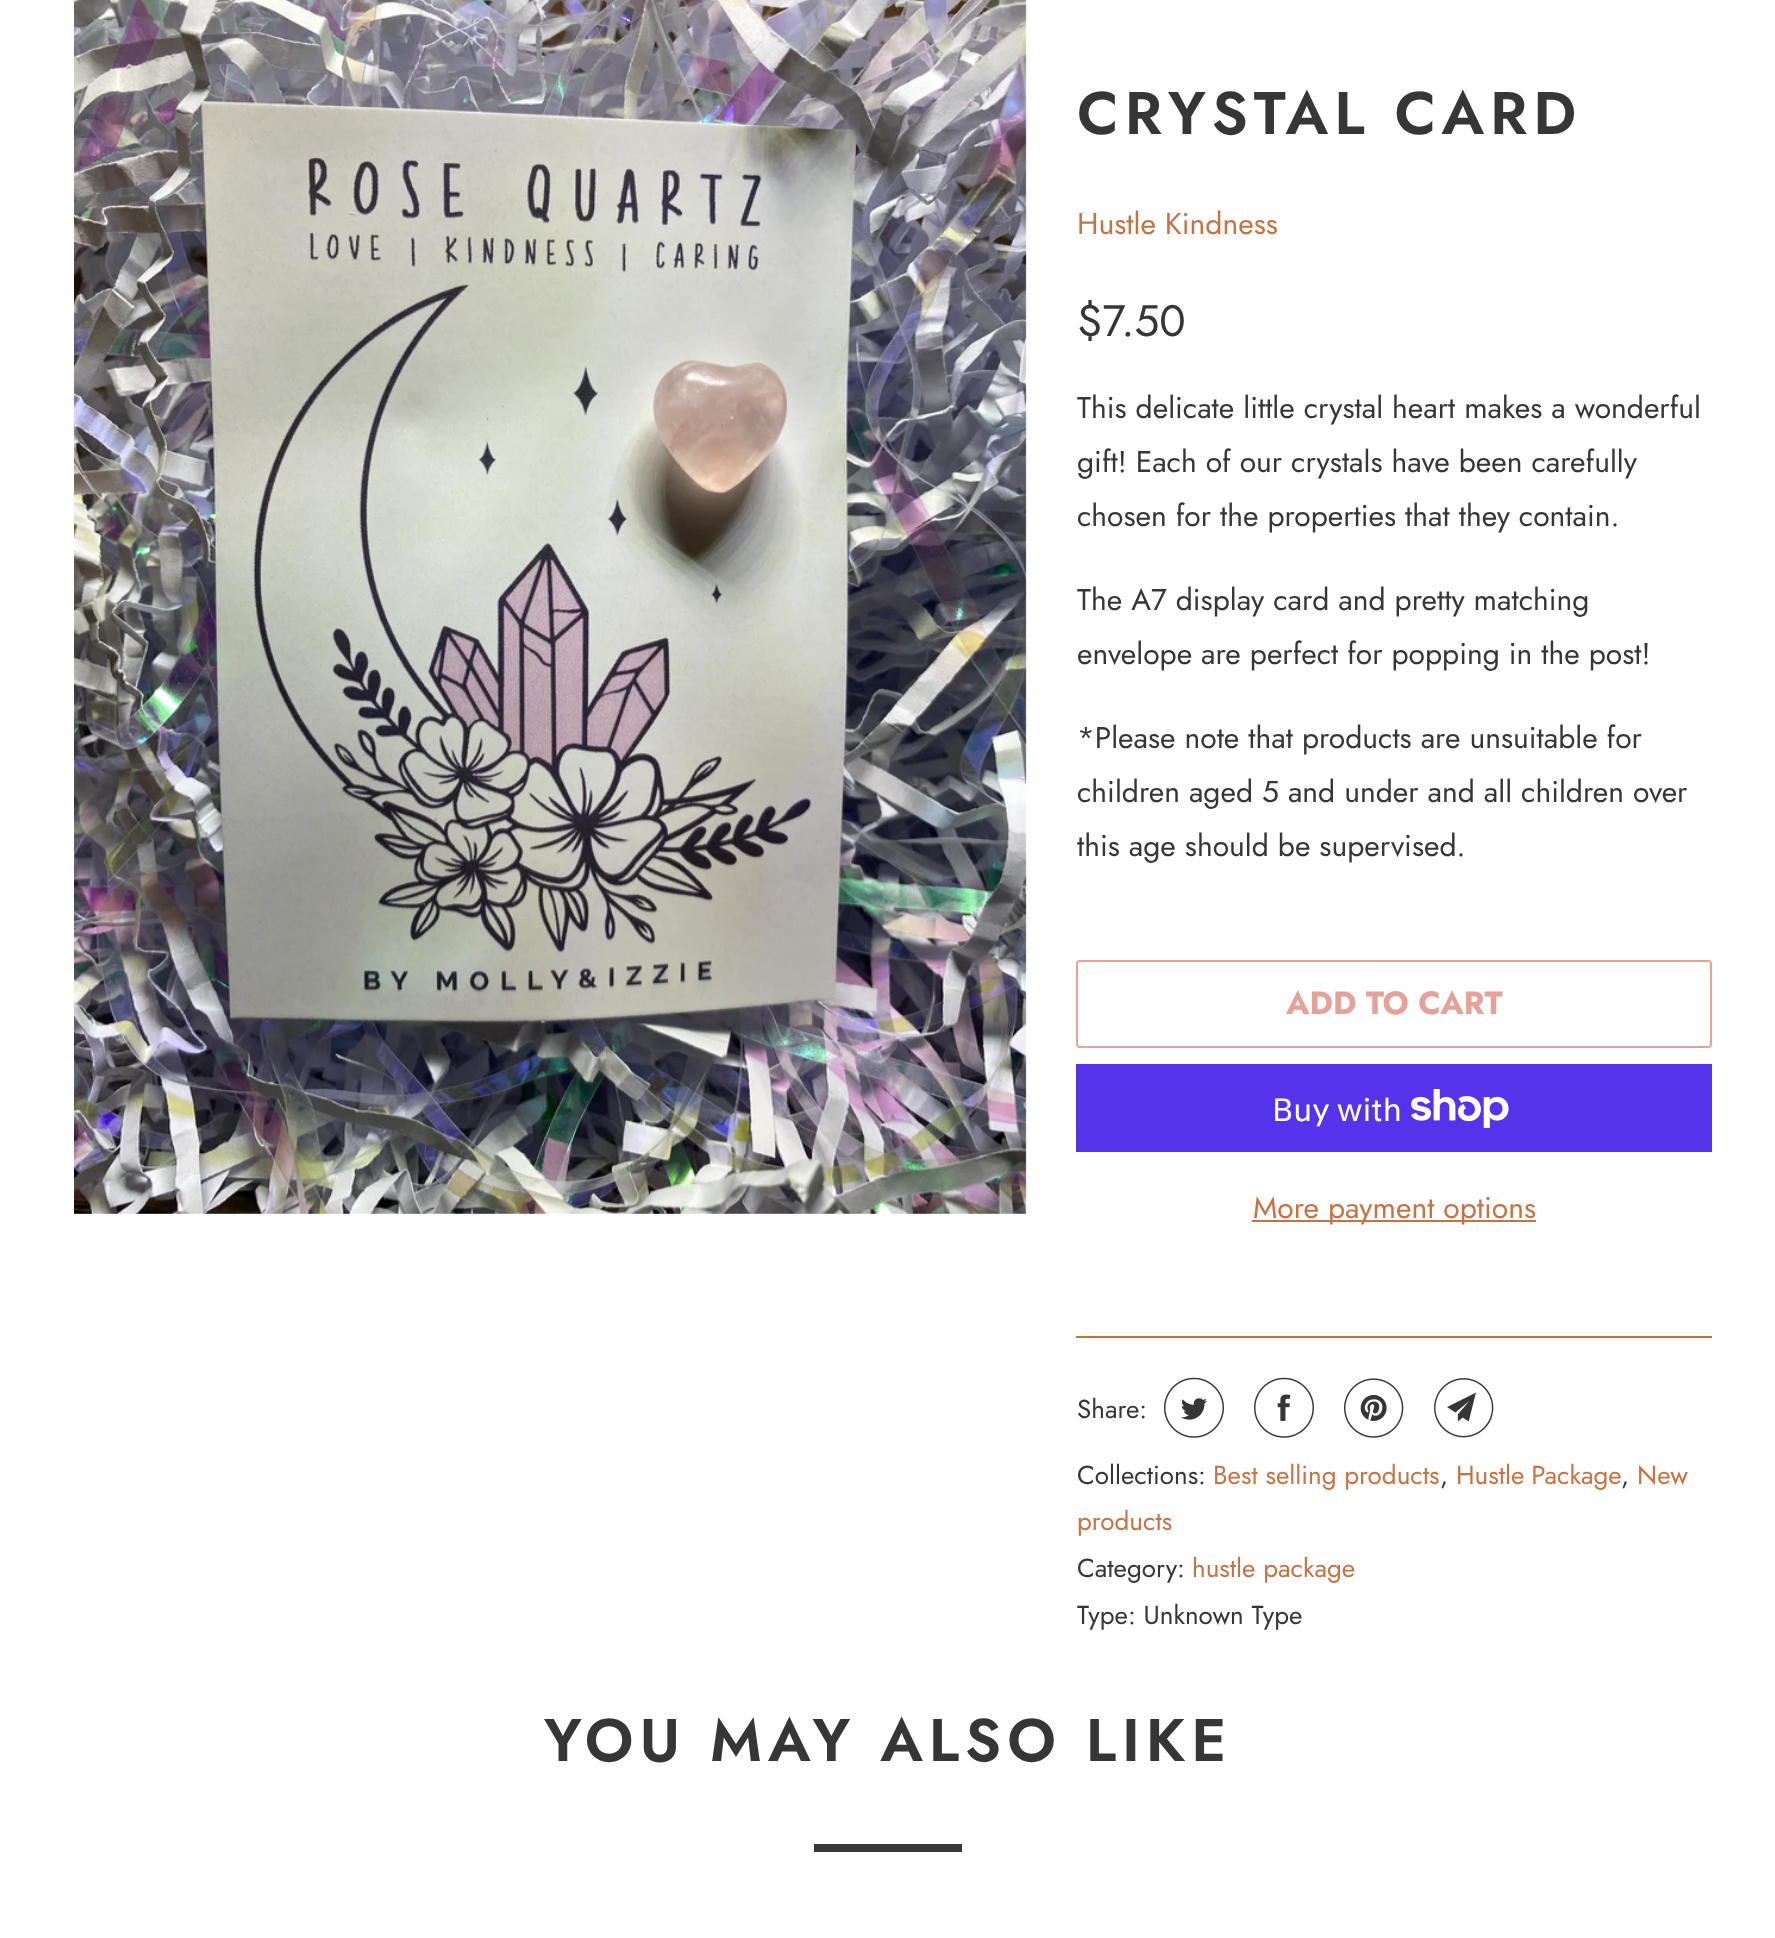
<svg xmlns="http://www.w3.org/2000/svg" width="1775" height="1938">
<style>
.a{font:600 60px Jost;letter-spacing:6px;fill:#363636}
.b{font:30px Jost;fill:#c47345}
.c{font:44px Jost;fill:#363636}
.d{font:30px Jost;fill:#363636}
.e{font:bold 32px Jost;fill:#e5a299}
.f{font:32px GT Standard;fill:#fff}
.g{font:26px Jost;fill:#363636}
.h{font:26px Jost;fill:#c47345}
</style>
<rect width="100%" height="100%" fill="#fff"/>
<image href="1.png" x="74" y="0" width="953" height="1214"/>
<rect fill="none" stroke="#e5a299" stroke-width="2" x="1077" y="961" width="634" height="86" rx="3"/>
<path fill="#5433eb" d="M1076 1064h636v88H1076z"/>
<image href="2.png" x="1411" y="1089" width="98" height="39"/>
<path fill="#c47345" d="M1252 1220h284v2H1252z"/>
<path fill="#c47345" d="M1076 1336h636v2H1076z"/>
<image href="3.png" x="1164" y="1377" width="60" height="61"/>
<image href="4.png" x="1254" y="1377" width="60" height="61"/>
<image href="5.png" x="1344" y="1378" width="60" height="60"/>
<image href="6.png" x="1434" y="1378" width="60" height="60"/>
<path fill="#363636" d="M814 1844h148v8H814z"/>
<text class="a" x="1077" y="134">CRYSTAL CARD</text>
<text class="b" x="1077" y="234">Hustle Kindness</text>
<text class="c" x="1077" y="336">$7.50</text>
<text class="d" x="1077" y="418">This delicate little crystal heart makes a wonderful</text>
<text class="d" x="1077" y="472">gift! Each of our crystals have been carefully</text>
<text class="d" x="1077" y="526">chosen for the properties that they contain.</text>
<text class="d" x="1077" y="610">The A7 display card and pretty matching</text>
<text class="d" x="1077" y="664">envelope are perfect for popping in the post!</text>
<text class="d" x="1077" y="748">*Please note that products are unsuitable for</text>
<text class="d" x="1077" y="802">children aged 5 and under and all children over</text>
<text class="d" x="1077" y="856">this age should be supervised.</text>
<text class="e" x="1286" y="1014">ADD TO CART</text>
<text class="f" x="1272" y="1121">Buy with</text>
<text class="b" x="1253" y="1218">More payment options</text>
<text class="g" x="1077" y="1418">Share:</text>
<text class="g" x="1077" y="1484">Collections:</text>
<text class="h" x="1213" y="1484">Best selling products</text>
<text class="g" x="1440" y="1484">,</text>
<text class="h" x="1456" y="1484" word-spacing="-1">Hustle Package</text>
<text class="g" x="1621" y="1484">,</text>
<text class="h" x="1637" y="1484">New</text>
<text class="h" x="1077" y="1530">products</text>
<text class="g" x="1077" y="1577">Category:</text>
<text class="h" x="1192" y="1577">hustle package</text>
<text class="g" x="1077" y="1624">Type: Unknown Type</text>
<text class="a" x="544" y="1761">YOU MAY ALSO LIKE</text>
</svg>
